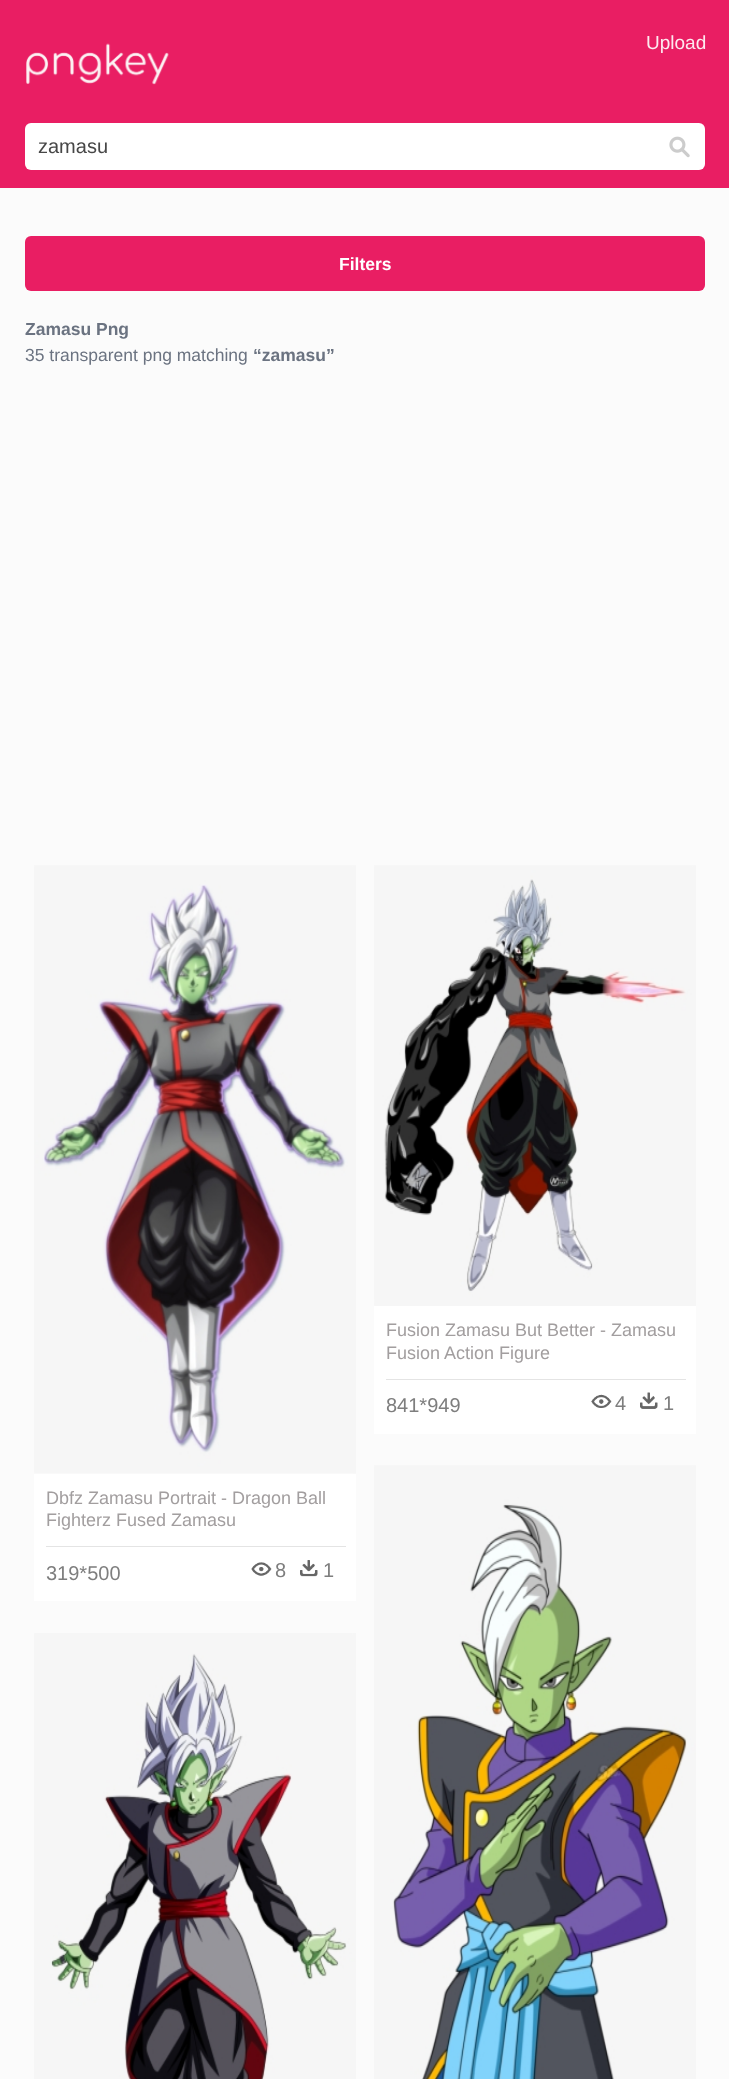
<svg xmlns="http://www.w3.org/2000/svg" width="729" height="2079">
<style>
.a{font:19px Liberation Sans;fill:#fde9ef}
.b{font:20px Liberation Sans;fill:#474747}
.c{font:bold 17.5px Liberation Sans;fill:#fff}
.d{font:bold 17.5px Liberation Sans;fill:#6b7381}
.e{font:17.5px Liberation Sans;fill:#6b7381}
.f{font:18px Liberation Sans;fill:#a29e9f}
.g{font:20px Liberation Sans;fill:#7e7e7e}
</style>
<rect width="100%" height="100%" fill="#fbfbfb"/>
<path fill="#e91e63" d="M0 0h729v188H0z"/>
<image href="1.png" x="26" y="43" width="143" height="42"/>
<rect fill="#fff" x="25" y="123" width="680" height="47" rx="6"/>
<image href="2.png" x="669" y="136" width="21" height="22"/>
<rect fill="#e91e63" x="25" y="236" width="680" height="55" rx="6"/>
<path fill="#fff" d="M374 1306h322v128H374z"/>
<image href="3.png" x="374" y="865" width="322" height="441"/>
<path fill="#e4e4e4" d="M386 1379h300v1H386z"/>
<image href="4.png" x="591" y="1394" width="21" height="14"/>
<image href="5.png" x="640" y="1392" width="18" height="17"/>
<path fill="#fff" d="M34 1473h322v128H34z"/>
<image href="6.png" x="34" y="865" width="322" height="609"/>
<path fill="#e4e4e4" d="M46 1546h300v1H46z"/>
<image href="7.png" x="251" y="1562" width="21" height="14"/>
<image href="8.png" x="300" y="1560" width="18" height="17"/>
<image href="9.png" x="374" y="1465" width="322" height="614"/>
<image href="10.png" x="34" y="1633" width="322" height="446"/>
<text class="a" x="646" y="49">Upload</text>
<text class="b" x="38" y="153">zamasu</text>
<text class="c" x="339" y="270">Filters</text>
<text class="d" x="25" y="335">Zamasu Png</text>
<text class="e" x="25" y="361">35 transparent png matching</text>
<text class="d" x="253" y="361">“zamasu”</text>
<text class="f" x="386" y="1336">Fusion Zamasu But Better - Zamasu</text>
<text class="f" x="386" y="1359">Fusion Action Figure</text>
<text class="g" x="386" y="1412">841*949</text>
<text class="g" x="615" y="1410">4</text>
<text class="g" x="663" y="1410">1</text>
<text class="f" x="46" y="1504">Dbfz Zamasu Portrait - Dragon Ball</text>
<text class="f" x="46" y="1526">Fighterz Fused Zamasu</text>
<text class="g" x="46" y="1580">319*500</text>
<text class="g" x="275" y="1577">8</text>
<text class="g" x="323" y="1577">1</text>
</svg>
